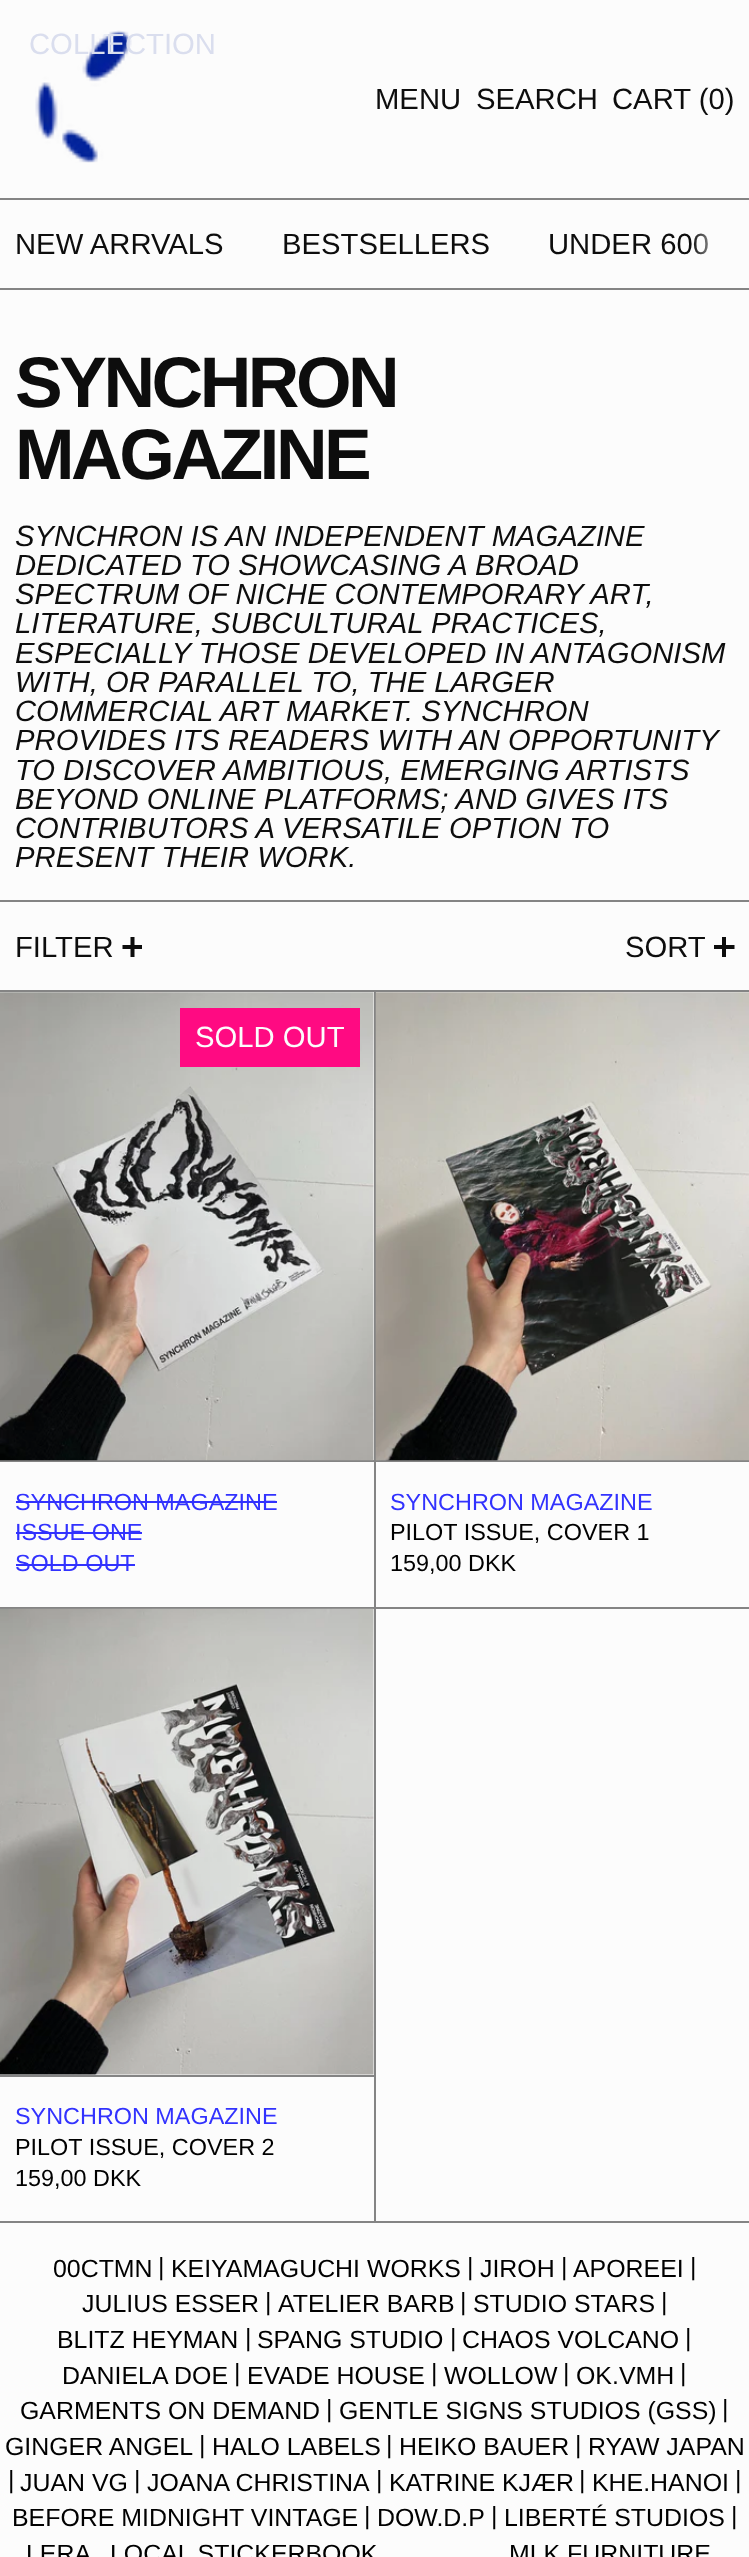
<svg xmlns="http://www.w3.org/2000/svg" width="749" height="2557">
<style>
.a{font:29.25px Liberation Sans;fill:#0d0d0d}
.b{font:29.25px Liberation Sans;fill:#fcfcfc}
.c{font:23.4px Liberation Sans;fill:#3232fe}
.d{font:23.4px Liberation Sans;fill:#000}
.e{font:bold 71.5px Liberation Sans;letter-spacing:-3.5px;fill:#0d0d0d}
.f{font:italic 29.25px Liberation Sans;fill:#0d0d0d}
.g{font:24.9px Liberation Sans;fill:#000}
.h{font:29.25px Liberation Sans;fill:#eaedf5}
.i{font:29.25px Liberation Sans;fill:#dadeee}
</style>
<defs>
<clipPath id="clip1"><path d="M122 936h20v23H122z"/></clipPath>
<linearGradient id="g1" gradientUnits="userSpaceOnUse" x1="691" y1="244" x2="749" y2="244"><stop offset="0" stop-color="#fcfcfc" stop-opacity="0"/><stop offset="0.5" stop-color="#fcfcfc" stop-opacity="0.75"/><stop offset="1" stop-color="#fcfcfc"/></linearGradient>
</defs>
<rect width="100%" height="100%" fill="#fcfcfc"/>
<path fill="#848484" d="M0 990h749v1233H0z"/>
<g clip-path="url(#clip1)">
<path fill="none" stroke="#0d0d0d" stroke-width="4" d="M132.5 937v20m-10-10h20"/>
</g>
<path fill="none" stroke="#0d0d0d" stroke-width="4" d="M724 937v20m-10-10h20.5"/>
<path fill="#fcfcfc" d="M0 992h374v615H0z"/>
<path fill="#848484" d="M0 1460h374v2H0z"/>
<image href="1.png" x="0" y="992" width="374" height="469"/>
<path fill="#ff0a82" d="M180 1008h180v59H180z"/>
<path fill="#3232fe" d="M16 1501h261v2H16z"/>
<path fill="#3232fe" d="M16 1532h126v2H16z"/>
<path fill="#3232fe" d="M16 1564h119v2H16z"/>
<path fill="#fcfcfc" d="M376 992h373v615H376z"/>
<path fill="#848484" d="M376 1460h373v2H376z"/>
<image href="2.png" x="375" y="992" width="374" height="469"/>
<path fill="#fcfcfc" d="M0 1609h374v612H0z"/>
<path fill="#848484" d="M0 2075h374v2H0z"/>
<image href="3.png" x="0" y="1608" width="374" height="467"/>
<path fill="#fcfcfc" d="M376 1609h373v612H376z"/>
<path fill="#848484" d="M0 900h749v2H0z"/>
<path fill="#848484" d="M0 288h749v2H0z"/>
<path fill="#848484" d="M0 198h749v2H0z"/>
<image href="4.png" x="35" y="30" width="97" height="133"/>
<text class="a" x="15" y="957">FILTER</text>
<text class="a" x="625" y="957">SORT</text>
<text class="b" x="195" y="1047">SOLD OUT</text>
<text class="c" x="15" y="1510">SYNCHRON MAGAZINE</text>
<text class="c" x="15" y="1540">ISSUE ONE</text>
<text class="c" x="15" y="1571">SOLD OUT</text>
<text class="c" x="390" y="1510">SYNCHRON MAGAZINE</text>
<text class="d" x="390" y="1540">PILOT ISSUE, COVER 1</text>
<text class="d" x="390" y="1571">159,00 DKK</text>
<text class="c" x="15" y="2124">SYNCHRON MAGAZINE</text>
<text class="d" x="15" y="2155">PILOT ISSUE, COVER 2</text>
<text class="d" x="15" y="2186">159,00 DKK</text>
<text class="e" x="15" y="407">SYNCHRON</text>
<text class="e" x="15" y="479">MAGAZINE</text>
<text class="f" x="15" y="546">SYNCHRON IS AN INDEPENDENT MAGAZINE</text>
<text class="f" x="15" y="575">DEDICATED TO SHOWCASING A BROAD</text>
<text class="f" x="15" y="604">SPECTRUM OF NICHE CONTEMPORARY ART,</text>
<text class="f" x="15" y="633">LITERATURE, SUBCULTURAL PRACTICES,</text>
<text class="f" x="15" y="663">ESPECIALLY THOSE DEVELOPED IN ANTAGONISM</text>
<text class="f" x="15" y="692">WITH, OR PARALLEL TO, THE LARGER</text>
<text class="f" x="15" y="721">COMMERCIAL ART MARKET. SYNCHRON</text>
<text class="f" x="15" y="750">PROVIDES ITS READERS WITH AN OPPORTUNITY</text>
<text class="f" x="15" y="780">TO DISCOVER AMBITIOUS, EMERGING ARTISTS</text>
<text class="f" x="15" y="809">BEYOND ONLINE PLATFORMS; AND GIVES ITS</text>
<text class="f" x="15" y="838">CONTRIBUTORS A VERSATILE OPTION TO</text>
<text class="f" x="15" y="867">PRESENT THEIR WORK.</text>
<text class="a" x="15" y="254">NEW ARRVALS</text>
<text class="a" x="282" y="254">BESTSELLERS</text>
<text class="a" x="548" y="254">UNDER 600</text>
<path fill="url(#g1)" d="M694 233h15v22H694z"/>
<text class="g" x="53" y="2277">00CTMN</text>
<text class="g" x="158" y="2275">|</text>
<text class="g" x="171" y="2277">KEIYAMAGUCHI WORKS</text>
<text class="g" x="467" y="2275">|</text>
<text class="g" x="480" y="2277">JIROH</text>
<text class="g" x="561" y="2275">|</text>
<text class="g" x="573" y="2277">APOREEI</text>
<text class="g" x="690" y="2275">|</text>
<text class="g" x="82" y="2312">JULIUS ESSER</text>
<text class="g" x="265" y="2310">|</text>
<text class="g" x="278" y="2312">ATELIER BARB</text>
<text class="g" x="460" y="2310">|</text>
<text class="g" x="473" y="2312">STUDIO STARS</text>
<text class="g" x="661" y="2310">|</text>
<text class="g" x="57" y="2348">BLITZ HEYMAN</text>
<text class="g" x="245" y="2346">|</text>
<text class="g" x="257" y="2348">SPANG STUDIO</text>
<text class="g" x="450" y="2346">|</text>
<text class="g" x="462" y="2348">CHAOS VOLCANO</text>
<text class="g" x="685" y="2346">|</text>
<text class="g" x="62" y="2384">DANIELA DOE</text>
<text class="g" x="234" y="2381">|</text>
<text class="g" x="247" y="2384">EVADE HOUSE</text>
<text class="g" x="431" y="2381">|</text>
<text class="g" x="444" y="2384">WOLLOW</text>
<text class="g" x="563" y="2381">|</text>
<text class="g" x="576" y="2384">OK.VMH</text>
<text class="g" x="680" y="2381">|</text>
<text class="g" x="20" y="2419">GARMENTS ON DEMAND</text>
<text class="g" x="326" y="2417">|</text>
<text class="g" x="339" y="2419">GENTLE SIGNS STUDIOS (GSS)</text>
<text class="g" x="722" y="2417">|</text>
<text class="g" x="5" y="2455">GINGER ANGEL</text>
<text class="g" x="199" y="2453">|</text>
<text class="g" x="212" y="2455">HALO LABELS</text>
<text class="g" x="386" y="2453">|</text>
<text class="g" x="399" y="2455">HEIKO BAUER</text>
<text class="g" x="575" y="2453">|</text>
<text class="g" x="588" y="2455">RYAW JAPAN</text>
<text class="g" x="8" y="2488">|</text>
<text class="g" x="20" y="2491">JUAN VG</text>
<text class="g" x="134" y="2488">|</text>
<text class="g" x="147" y="2491">JOANA CHRISTINA</text>
<text class="g" x="376" y="2488">|</text>
<text class="g" x="389" y="2491">KATRINE KJÆR</text>
<text class="g" x="579" y="2488">|</text>
<text class="g" x="592" y="2491">KHE.HANOI</text>
<text class="g" x="735" y="2488">|</text>
<text class="g" x="12" y="2526">BEFORE MIDNIGHT VINTAGE</text>
<text class="g" x="364" y="2524">|</text>
<text class="g" x="377" y="2526">DOW.D.P</text>
<text class="g" x="491" y="2524">|</text>
<text class="g" x="504" y="2526">LIBERTÉ STUDIOS</text>
<text class="g" x="731" y="2524">|</text>
<text class="g" x="26" y="2562">LERA</text>
<text class="g" x="110" y="2562">LOCAL STICKERBOOK</text>
<text class="g" x="509" y="2562">MLK FURNITURE</text>
<text class="h" x="103" y="54">T</text>
<text class="i" x="29" y="54">COLLECTION</text>
<text class="a" x="375" y="109">MENU</text>
<text class="a" x="476" y="109">SEARCH</text>
<text class="a" x="612" y="109">CART (0)</text>
</svg>
